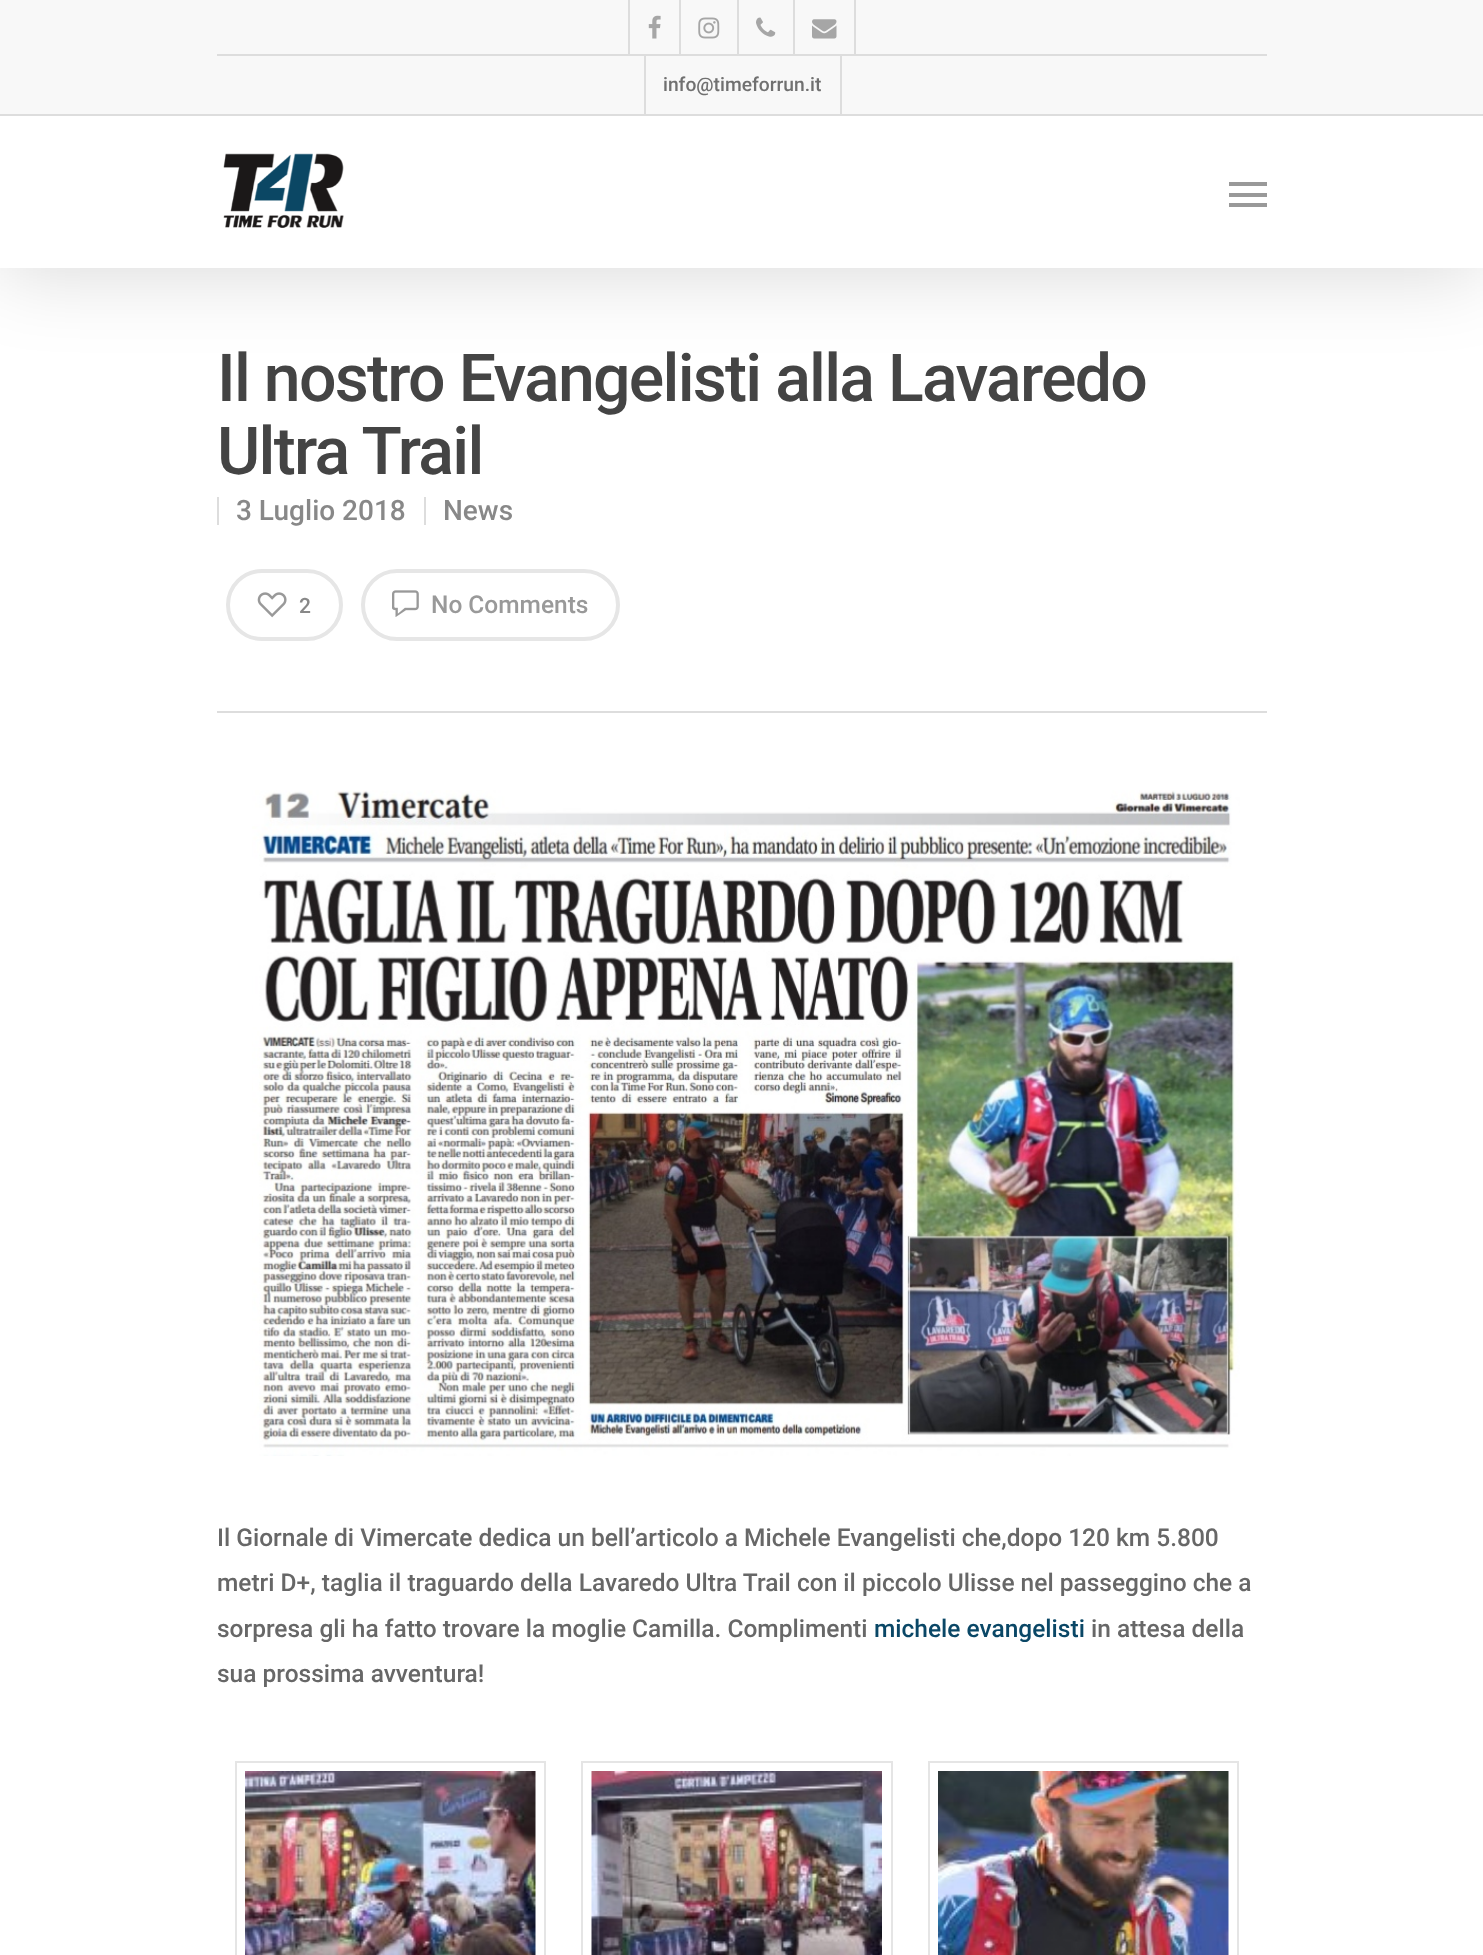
<svg xmlns="http://www.w3.org/2000/svg" width="1483" height="1955">
<style>
.a{font:500 19.25px Roboto;fill:#707070}
.b{font:500 66.2px Roboto;letter-spacing:-1.75px;fill:#444}
.c{font:500 28px Roboto;fill:#888}
.d{font:500 21px Roboto;fill:#888}
.e{font:500 24.5px Roboto;fill:#999}
.f{font:500 24.5px Roboto;fill:#676767}
.g{font:500 24.5px Roboto;fill:#0a4766}
</style>
<rect width="100%" height="100%" fill="#fff"/>
<path fill="#00000026" filter="blur(39.5px)" d="M0 119h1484v154H0z"/>
<path fill="#fff" d="M0 116h1483v152H0z"/>
<image href="1.png" x="223" y="153" width="121" height="75"/>
<path fill="#999" d="M1229 182h38v4H1229z"/>
<path fill="#999" d="M1229 203h38v4H1229z"/>
<path fill="#999" d="M1229 193h38v4H1229z"/>
<path fill="#f8f8f8" d="M0 0h1483v114H0z"/>
<path fill="#ddd" d="M0 114h1483v2H0z"/>
<path fill="#ddd" d="M628 0h2v54H628z"/>
<image href="2.png" x="648" y="15" width="13" height="24"/>
<path fill="#ddd" d="M679 0h2v54H679z"/>
<image href="3.png" x="698" y="17" width="22" height="22"/>
<path fill="#ddd" d="M737 0h2v54H737z"/>
<image href="4.png" x="756" y="17" width="20" height="20"/>
<path fill="#ddd" d="M854 0h2v54H854z"/>
<path fill="#ddd" d="M793 0h2v54H793z"/>
<image href="5.png" x="812" y="19" width="25" height="20"/>
<path fill="#ddd" d="M217 54h1050v2H217z"/>
<path fill="#ddd" d="M840 56h2v58H840z"/>
<path fill="#ddd" d="M644 56h2v58H644z"/>
<path fill="#ddd" d="M217 711h1050v2H217z"/>
<path fill="#ddd" d="M217 497h2v28H217z"/>
<path fill="#ddd" d="M424 497h2v28H424z"/>
<rect fill="none" stroke="#e6e6e6" stroke-width="4" x="228" y="571" width="113" height="68" rx="34"/>
<image href="6.png" x="257" y="592" width="30" height="26"/>
<rect fill="none" stroke="#e6e6e6" stroke-width="4" x="363" y="571" width="255" height="68" rx="34"/>
<image href="7.png" x="392" y="590" width="27" height="27"/>
<image href="8.png" x="252" y="790" width="988" height="666"/>
<path fill="none" stroke="#e5e5e5" stroke-width="2" d="M236 1762h309v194H236z"/>
<image href="9.png" x="245" y="1771" width="291" height="184"/>
<path fill="none" stroke="#e5e5e5" stroke-width="2" d="M582 1762h310v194H582z"/>
<image href="10.png" x="591" y="1771" width="291" height="184"/>
<path fill="none" stroke="#e5e5e5" stroke-width="2" d="M929 1762h309v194H929z"/>
<image href="11.png" x="938" y="1771" width="291" height="184"/>
<text class="a" x="663" y="91">info@timeforrun.it</text>
<text class="b" x="217" y="401">Il nostro Evangelisti alla Lavaredo</text>
<text class="b" x="217" y="474">Ultra Trail</text>
<text class="c" x="236" y="520">3 Luglio 2018</text>
<text class="c" x="443" y="520">News</text>
<text class="d" x="299" y="613">2</text>
<text class="e" x="431" y="613">No Comments</text>
<text class="f" x="217" y="1546">Il Giornale di Vimercate dedica un bell’articolo a Michele Evangelisti che,dopo 120 km 5.800</text>
<text class="f" x="217" y="1591">metri D+, taglia il traguardo della Lavaredo Ultra Trail con il piccolo Ulisse nel passeggino che a</text>
<text class="f" x="217" y="1637">sorpresa gli ha fatto trovare la moglie Camilla. Complimenti</text>
<text class="g" x="874" y="1637">michele evangelisti</text>
<text class="f" x="1091" y="1637">in attesa della</text>
<text class="f" x="217" y="1682">sua prossima avventura!</text>
</svg>
